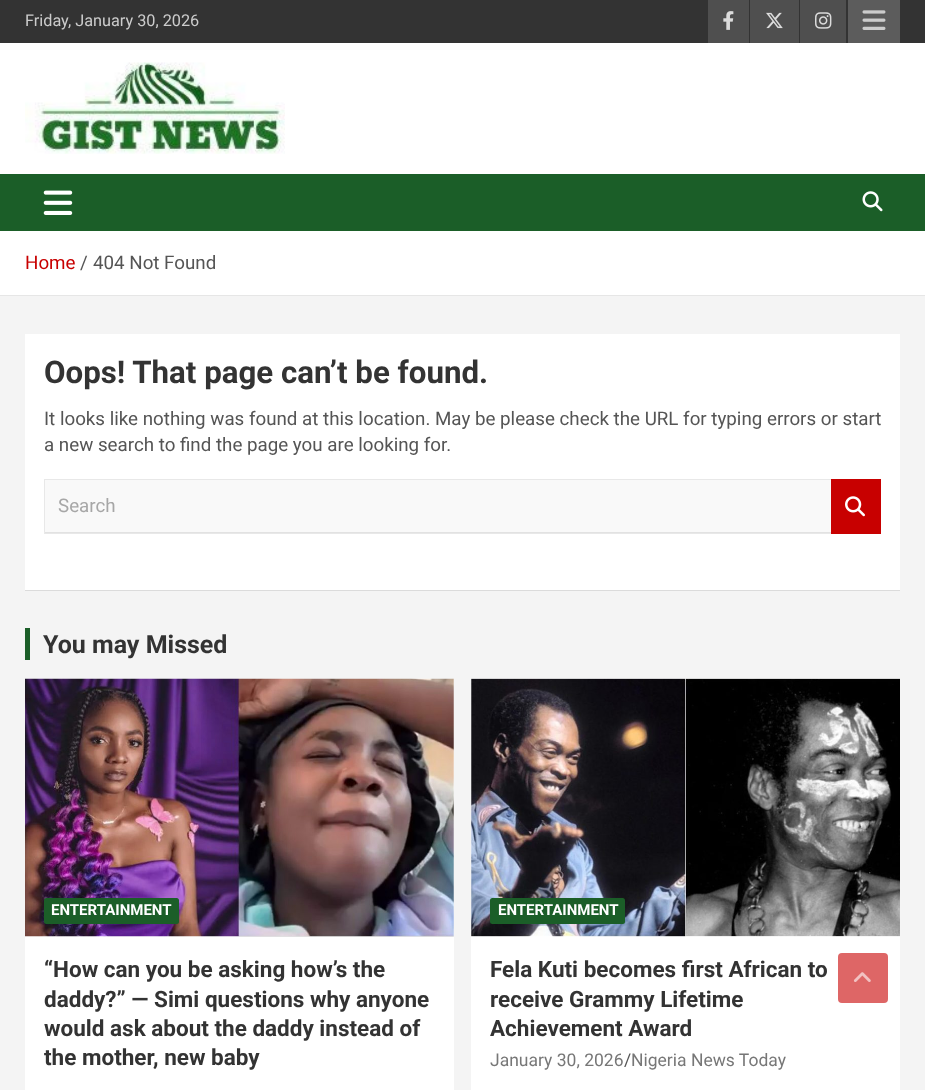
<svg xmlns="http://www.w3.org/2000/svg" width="925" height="1090">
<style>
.a{font:16.25px Roboto;fill:#ccc}
.b{font:18.75px Roboto;fill:#c80000}
.c{font:18.75px Roboto;fill:#555}
.d{font:bold 31.25px Roboto;fill:#333}
.e{font:18.75px Roboto;fill:#a7a7a7}
.f{font:bold 25px Roboto;fill:#333}
.g{font:bold 15px Roboto;fill:#fff}
.h{font:bold 22.5px Roboto;fill:#333}
.i{font:17.5px Roboto;fill:#777}
.j{font:17.5px Roboto;fill:#555}
</style>
<rect width="100%" height="100%" fill="#f4f4f4"/>
<path fill="#333" d="M0 0h925v43H0z"/>
<path fill="#4f4f4f" d="M708 0h41v43H708z"/>
<image href="1.png" x="723" y="11" width="11" height="19"/>
<path fill="#4f4f4f" d="M750 0h49v43H750z"/>
<image href="2.png" x="766" y="12" width="17" height="17"/>
<path fill="#4f4f4f" d="M800 0h46v43H800z"/>
<image href="3.png" x="815" y="12" width="17" height="17"/>
<path fill="#5c5c5c" d="M848 0h52v43H848z"/>
<image href="4.png" x="862" y="10" width="24" height="20"/>
<path fill="#fff" d="M0 43h925v131H0z"/>
<image href="5.png" x="25" y="62" width="260" height="92"/>
<path fill="#1b5e28" d="M0 174h925v57H0z"/>
<image href="6.png" x="43" y="190" width="30" height="25"/>
<image href="7.png" x="862" y="191" width="21" height="21"/>
<path fill="#fff" d="M0 231h925v64H0z"/>
<path fill="#e6e6e6" d="M0 295h925v1H0z"/>
<path fill="#0000001a" filter="blur(0.5px)" d="M25 335h875v256H25z"/>
<path fill="#fff" d="M25 334h875v256H25z"/>
<path fill="#f9f9f9" d="M45 480h786v53H45z"/>
<path fill="#e8e8e8" d="M44 479h787v1h-786z"/>
<path fill="#00000017" d="M831 534h-787l1-2h786z"/>
<path fill="#00000017" d="M44 534v-55l1 1v52z"/>
<path fill="#c80000" d="M831 479h50v55H831z"/>
<image href="8.png" x="845" y="496" width="20" height="21"/>
<path fill="#1b5e28" d="M25 628h5v32H25z"/>
<path fill="#fff" d="M25 679h429v411H25z"/>
<image href="9.png" x="25" y="678" width="429" height="259"/>
<rect fill="#1b5e28" x="44" y="898" width="135" height="26" rx="2.5"/>
<path fill="#fff" d="M471 679h429v411H471z"/>
<image href="10.png" x="471" y="678" width="429" height="259"/>
<rect fill="#1b5e28" x="490" y="898" width="135" height="26" rx="2.5"/>
<rect fill="#de6666" x="838" y="953" width="50" height="50" rx="4"/>
<image href="11.png" x="853" y="972" width="18" height="10"/>
<text class="a" x="25" y="26">Friday, January 30, 2026</text>
<text class="b" x="25" y="269">Home</text>
<text class="c" x="80" y="269">/</text>
<text class="c" x="93" y="269">404 Not Found</text>
<text class="d" x="44" y="383">Oops! That page can’t be found.</text>
<text class="c" x="44" y="425">It looks like nothing was found at this location. May be please check the URL for typing errors or start</text>
<text class="c" x="44" y="451">a new search to find the page you are looking for.</text>
<text class="e" x="58" y="512">Search</text>
<text class="f" x="43" y="653">You may Missed</text>
<text class="g" x="51" y="915">ENTERTAINMENT</text>
<text class="h" x="44" y="977">“How can you be asking how’s the</text>
<text class="h" x="44" y="1007">daddy?” — Simi questions why anyone</text>
<text class="h" x="44" y="1036">would ask about the daddy instead of</text>
<text class="h" x="44" y="1065">the mother, new baby</text>
<text class="g" x="498" y="915">ENTERTAINMENT</text>
<text class="h" x="490" y="977">Fela Kuti becomes first African to</text>
<text class="h" x="490" y="1007">receive Grammy Lifetime</text>
<text class="h" x="490" y="1036">Achievement Award</text>
<text class="i" x="490" y="1066">January 30, 2026</text>
<text class="j" x="624" y="1066">/</text>
<text class="i" x="631" y="1066">Nigeria News Today</text>
</svg>
